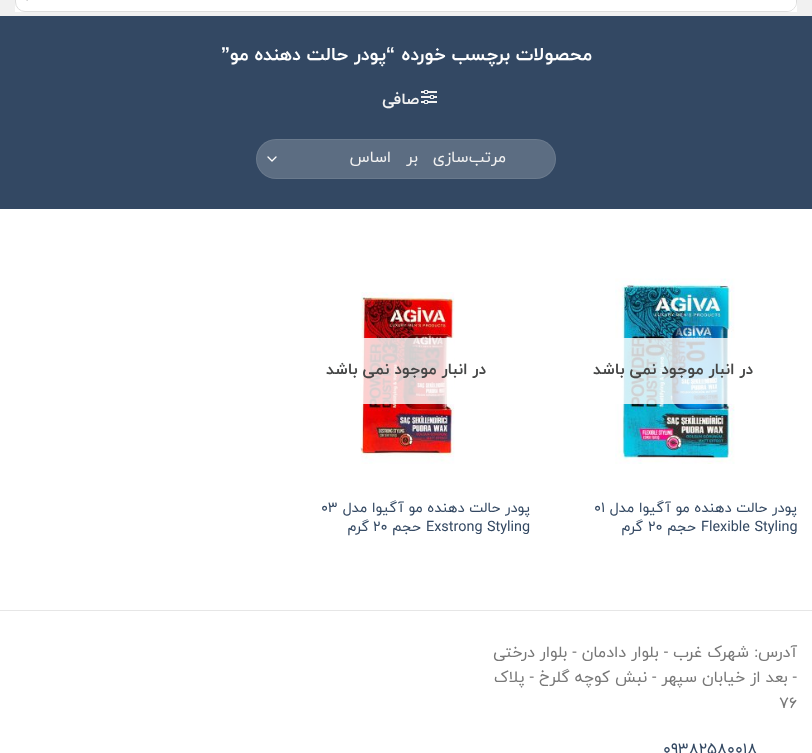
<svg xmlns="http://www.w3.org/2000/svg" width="812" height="753">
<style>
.a{font:bold 18.4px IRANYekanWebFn;direction:rtl;fill:#fff}
.b{font:bold 18.4px Liberation Sans;direction:rtl;fill:#fff}
.c{font:bold 16px IRANYekanWebFn;letter-spacing:1px;direction:rtl;fill:#f1f1f1}
.d{font:16px IRANYekanWebFn;direction:rtl;fill:#f1f1f1}
.e{font:bold 16px IRANYekanWebFn;direction:rtl;fill:#454646}
.f{font:14.4px IRANYekanWebFn;direction:rtl;fill:#334862}
.g{font:14.4px IRANYekanWebFn;fill:#334862}
.h{font:16px IRANYekanWebFn;direction:rtl;fill:#777}
.i{font:16px IRANYekanWebFn;fill:#777}
.j{font:16px IRANYekanWebFn;fill:#334862}
</style>
<rect width="100%" height="100%" fill="#fff"/>
<path fill="#f1f1f1" d="M0 0h812v16H0z"/>
<path fill="#fff" d="M15 0h782v12H15z"/>
<rect fill="none" stroke="#ddd" x="15.5" y="-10.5" width="781" height="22" rx="9.5"/>
<path fill="#fff" d="M73-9h714c5 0 9 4 9 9v2c0 5-4 9-9 9h-714z"/>
<image href="1.png" x="26" y="0" width="2" height="1"/>
<path fill="#334863" d="M0 16h812v193H0z"/>
<image href="2.png" x="421" y="90" width="16" height="14"/>
<rect fill="#5c6d82" x="256" y="139" width="300" height="40" rx="20"/>
<path fill="none" stroke="#fff" stroke-width="1.3" stroke-linecap="round" stroke-linejoin="round" d="M268 157l4 4l4-4"/>
<rect fill="none" stroke="#ffffff17" x="256.5" y="139.5" width="299" height="39" rx="19.5"/>
<image href="3.png" x="615" y="278" width="120" height="186"/>
<path fill="#ffffffcf" d="M615 338h120v66H615z"/>
<image href="4.png" x="360" y="292" width="95" height="172"/>
<path fill="#ffffffcf" d="M361 338h93v66H361z"/>
<path fill="#e6e6e6" d="M0 610h812v1H0z"/>
<text class="a" x="592" y="60">محصولات برچسب خورده</text>
<text class="b" x="395" y="60">“</text>
<text class="a" x="386" y="60">پودر حالت دهنده مو</text>
<text class="b" x="230" y="60">”</text>
<text class="c" x="419" y="104">صافی</text>
<text class="d" x="506" y="162" word-spacing="10">مرتب‌سازی بر اساس</text>
<text class="e" x="753" y="374">در انبار موجود نمی باشد</text>
<text class="f" x="797" y="512">پودر حالت دهنده مو آگیوا مدل</text>
<text class="g" x="594" y="512">01</text>
<text class="g" x="701" y="531">Flexible Styling</text>
<text class="f" x="696" y="531">حجم</text>
<text class="g" x="648" y="531">20</text>
<text class="f" x="643" y="531">گرم</text>
<text class="e" x="486" y="374">در انبار موجود نمی باشد</text>
<text class="f" x="530" y="512">پودر حالت دهنده مو آگیوا مدل</text>
<text class="g" x="321" y="512">03</text>
<text class="g" x="426" y="531">Exstrong Styling</text>
<text class="f" x="421" y="531">حجم</text>
<text class="g" x="373" y="531">20</text>
<text class="f" x="369" y="531">گرم</text>
<text class="h" x="797" y="657">آدرس:</text>
<text class="h" x="749" y="657">شهرک غرب - بلوار دادمان - بلوار درختی</text>
<text class="h" x="797" y="682">- بعد از خیابان سپهر - نبش کوچه گلرخ - پلاک</text>
<text class="i" x="779" y="708">۷۶</text>
<text class="j" x="663" y="754">09382580018</text>
</svg>
